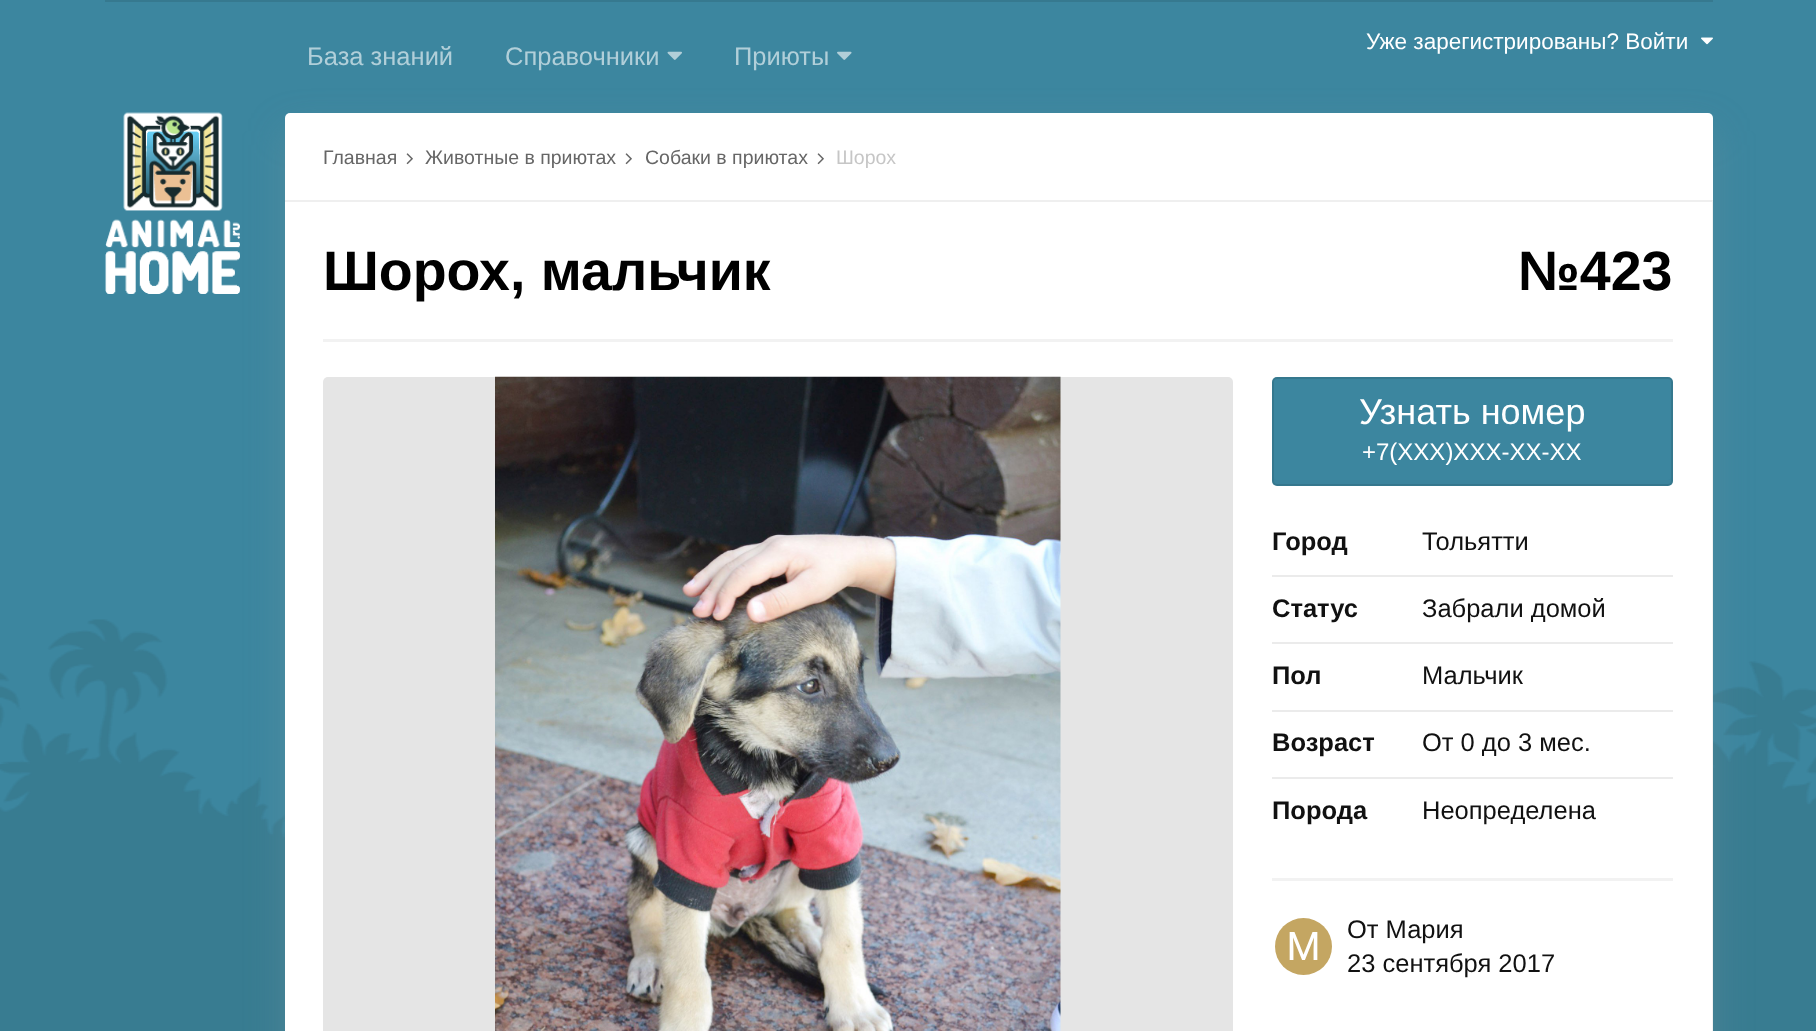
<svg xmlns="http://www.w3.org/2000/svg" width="1816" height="1031">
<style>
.a{font:22.5px Liberation Sans;fill:#fff}
.b{font:25.5px Liberation Sans;fill:#b1cfd9}
.c{font:19.5px Liberation Sans;fill:#666}
.d{font:19.5px Liberation Sans;fill:#c6c6c6}
.e{font:bold 55.5px Liberation Sans;fill:#000}
.f{font:36px Liberation Sans;fill:#fff}
.g{font:24px Liberation Sans;fill:#fff}
.h{font:bold 25.5px Liberation Sans;fill:#111}
.i{font:25.5px Liberation Sans;fill:#111}
</style>
<rect width="100%" height="100%" fill="#3c869f"/>
<image href="1.png" x="0" y="619" width="1816" height="412"/>
<path fill="#36798f" d="M105 0h1608v2H105z"/>
<image href="2.png" x="1701" y="37" width="12" height="8"/>
<image href="3.png" x="667" y="51" width="15" height="9"/>
<image href="4.png" x="837" y="51" width="15" height="9"/>
<rect fill="#7f99a24d" filter="blur(19.5px)" x="285" y="131" width="1428" height="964" rx="5"/>
<image href="5.png" x="105" y="112" width="135" height="182"/>
<rect fill="#fff" x="285" y="113" width="1428" height="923" rx="5"/>
<path fill="#efefef" d="M285 200h1428v2H285z"/>
<image href="6.png" x="406" y="153" width="7" height="12"/>
<image href="6.png" x="625" y="153" width="7" height="12"/>
<image href="6.png" x="817" y="153" width="7" height="12"/>
<path fill="#f2f2f2" d="M323 339h1350v3H323z"/>
<rect fill="#e5e5e5" x="323" y="377" width="910" height="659" rx="5"/>
<image href="7.png" x="495" y="376" width="566" height="655"/>
<rect fill="#3c869f" x="1272" y="377" width="401" height="109" rx="5"/>
<path fill="#3b839c" d="M1274 477c0 2-1 8 3 8h391c4 0 3-6 3-8c0 2-1 3-3 3h-392c-1 0-2-1-2-3z"/>
<rect fill="none" stroke="#0000001a" stroke-width="2" x="1273" y="378" width="399" height="107" rx="4"/>
<path fill="#ebebeb" d="M1272 575h401v2H1272z"/>
<path fill="#ebebeb" d="M1272 642h401v2H1272z"/>
<path fill="#ebebeb" d="M1272 710h401v2H1272z"/>
<path fill="#ebebeb" d="M1272 777h401v2H1272z"/>
<path fill="#f2f2f2" d="M1272 878h401v3H1272z"/>
<image href="8.png" x="1275" y="918" width="57" height="57"/>
<path fill="#f2f2f2" d="M1712 201h1v830H1712z"/>
<text class="a" x="1366" y="49">Уже зарегистрированы? Войти</text>
<text class="b" x="307" y="65">База знаний</text>
<text class="b" x="505" y="65">Справочники</text>
<text class="b" x="734" y="65">Приюты</text>
<text class="c" x="323" y="164">Главная</text>
<text class="c" x="425" y="164">Животные в приютах</text>
<text class="c" x="645" y="164">Собаки в приютах</text>
<text class="d" x="836" y="164">Шорох</text>
<text class="e" x="323" y="290">Шорох, мальчик</text>
<text class="e" x="1518" y="290">№423</text>
<text class="f" x="1359" y="424">Узнать номер</text>
<text class="g" x="1362" y="460">+7(XXX)XXX-XX-XX</text>
<text class="h" x="1272" y="550">Город</text>
<text class="i" x="1422" y="550">Тольятти</text>
<text class="h" x="1272" y="617">Статус</text>
<text class="i" x="1422" y="617">Забрали домой</text>
<text class="h" x="1272" y="684">Пол</text>
<text class="i" x="1422" y="684">Мальчик</text>
<text class="h" x="1272" y="751">Возраст</text>
<text class="i" x="1422" y="751">От 0 до 3 мес.</text>
<text class="h" x="1272" y="819">Порода</text>
<text class="i" x="1422" y="819">Неопределена</text>
<text class="i" x="1347" y="938">От Мария</text>
<text class="i" x="1347" y="972">23 сентября 2017</text>
</svg>
